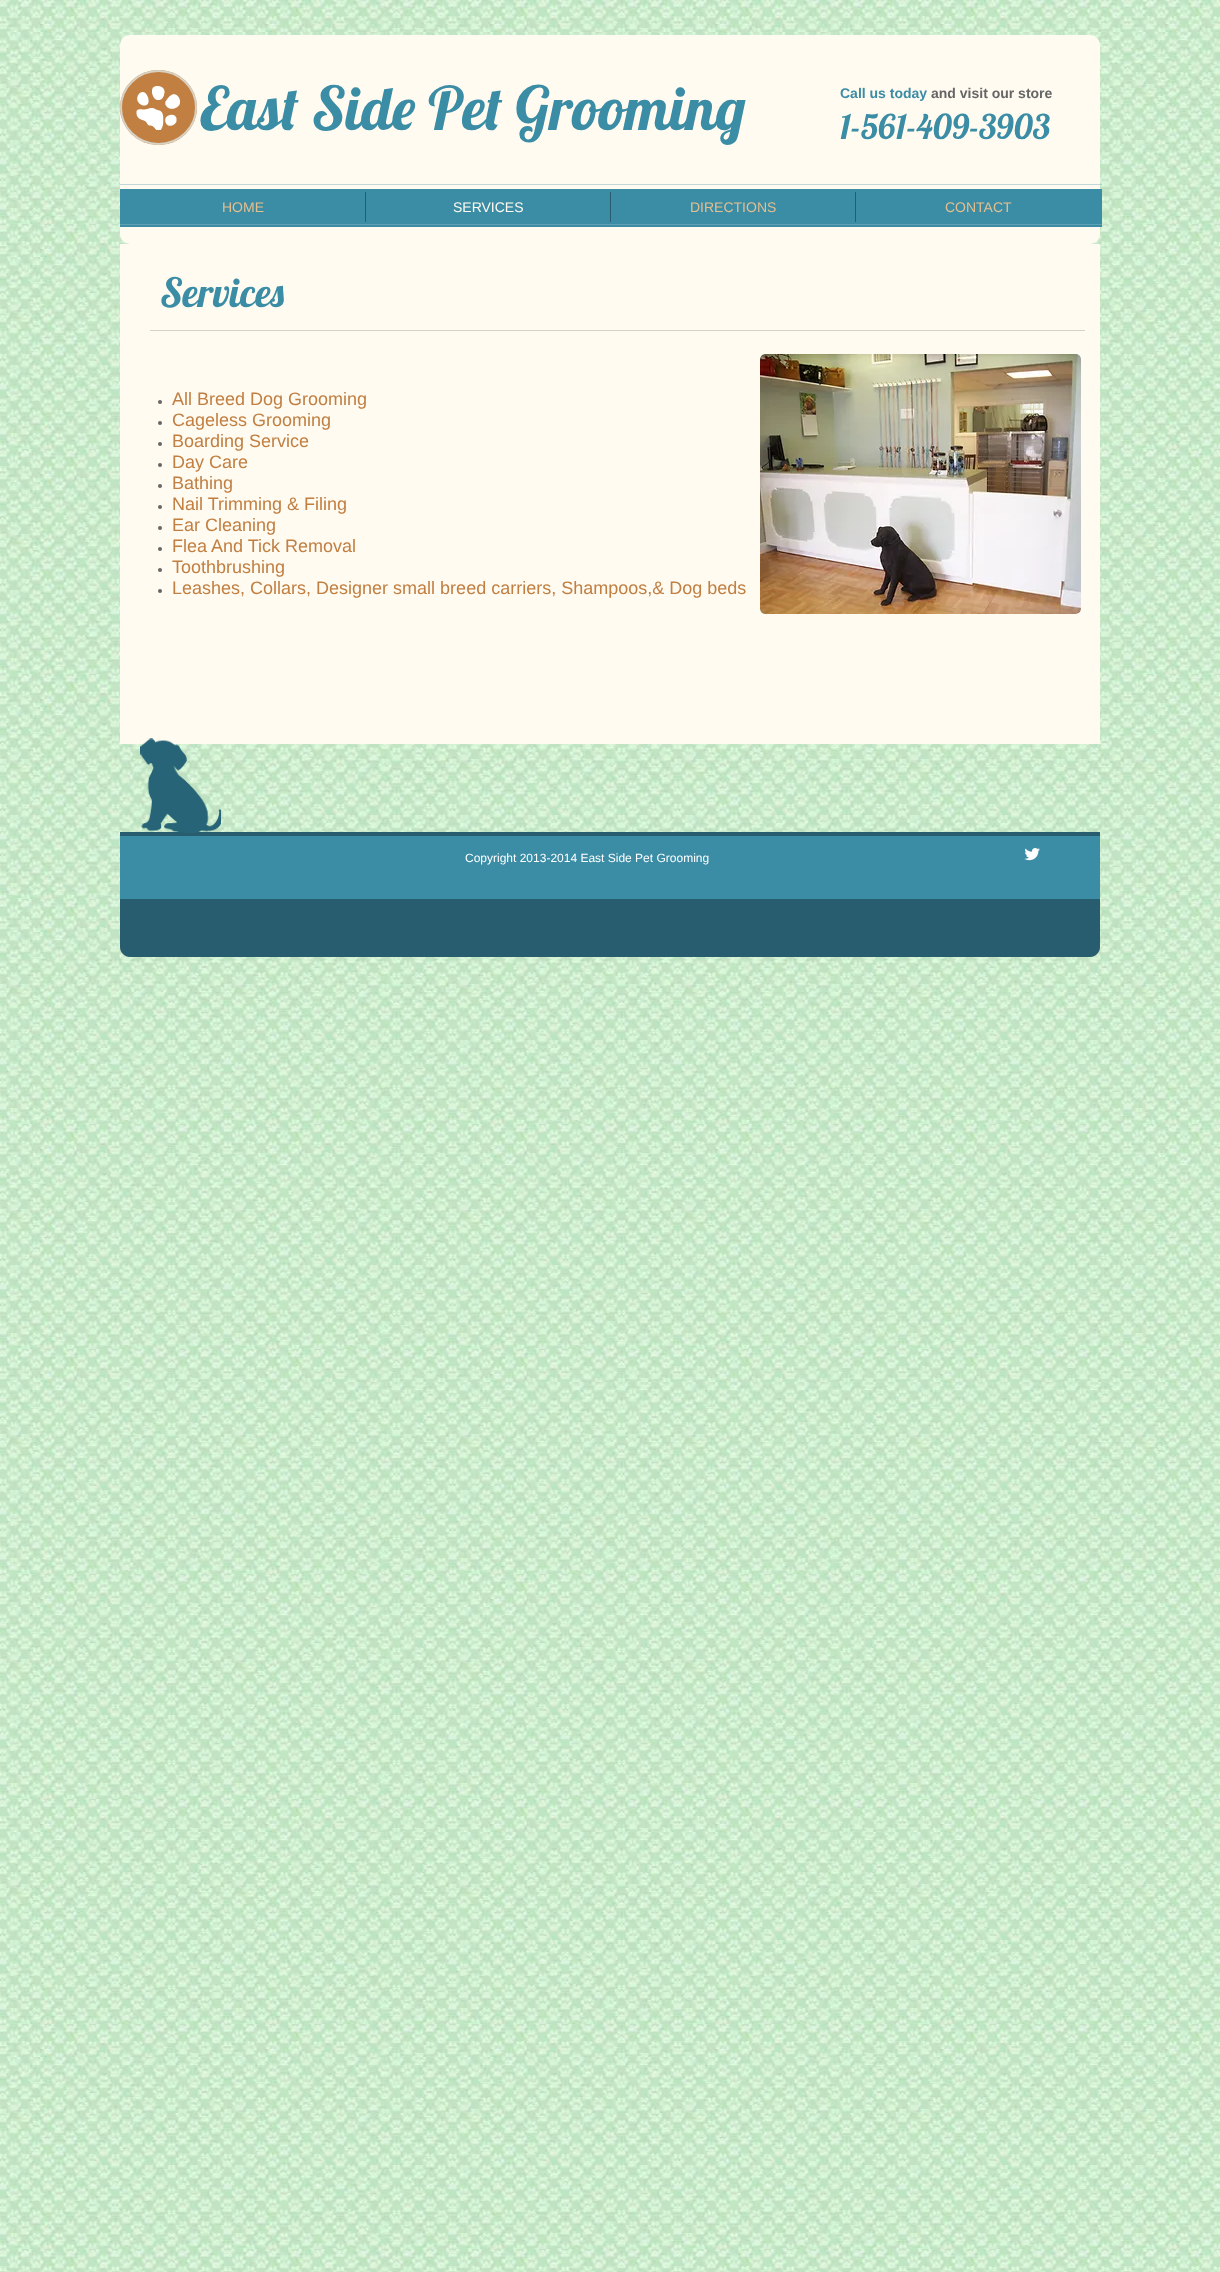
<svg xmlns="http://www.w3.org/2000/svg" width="1220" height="2272">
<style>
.a{font:60px Lobster;fill:#3b8ca5}
.b{font:bold 14px Liberation Sans;fill:#3b8ca5}
.c{font:bold 14px Liberation Sans;fill:#666}
.d{font:34px Lobster;fill:#3b8ca5}
.e{font:14px Liberation Sans;fill:#e4bf8f}
.f{font:14px Liberation Sans;fill:#fffbf1}
.g{font:40px Lobster;fill:#3b8ca5}
.h{font:18px Liberation Sans;fill:#c17f42}
.i{font:12px Liberation Sans;fill:#fff}
</style>
<rect width="100%" height="100%" fill="#fff"/>
<image href="1.png" x="0" y="0" width="1220" height="2272"/>
<rect fill="#fffbf1" x="120" y="35" width="980" height="209" rx="10"/>
<ellipse fill="#c17f42" cx="158.5" cy="107.5" rx="38.5" ry="37.5"/>
<path fill="none" stroke="#d7d2c4" stroke-width="2" d="M158.5 71c20.5 0 37.5 16.5 37.5 36.5c0 20-17 36.5-37.5 36.5c-20.5 0-37.5-16.5-37.5-36.5c0-20 17-36.5 37.5-36.5z"/>
<image href="2.png" x="136" y="86" width="44" height="44"/>
<path fill="#84b4c380" d="M120 184h982v1H120z"/>
<path fill="#3b8ca5" d="M120 189h982v38H120z"/>
<path fill="#275d6e" d="M365 192h1v30H365z"/>
<path fill="#275d6e" d="M610 192h1v30H610z"/>
<path fill="#275d6e" d="M855 192h1v30H855z"/>
<path fill="#60a0b4" d="M120 224h982v1H120z"/>
<path fill="#fffbf1" d="M120 244h980v500H120z"/>
<path fill="#d7d2c4" d="M150 330h935v1H150z"/>
<circle fill="#666" cx="160" cy="402" r="2"/>
<circle fill="#666" cx="160" cy="423" r="2"/>
<circle fill="#666" cx="160" cy="444" r="2"/>
<circle fill="#666" cx="160" cy="465" r="2"/>
<circle fill="#666" cx="160" cy="486" r="2"/>
<circle fill="#666" cx="160" cy="507" r="2"/>
<circle fill="#666" cx="160" cy="528" r="2"/>
<circle fill="#666" cx="160" cy="549" r="2"/>
<circle fill="#666" cx="160" cy="570" r="2"/>
<circle fill="#666" cx="160" cy="591" r="2"/>
<rect fill="#b1d6e1" x="760" y="354" width="321" height="260" rx="5"/>
<image href="3.png" x="760" y="354" width="321" height="260"/>
<path fill="#275d6e" d="M120 832h980v115c0 5.5-4.5 10-10 10h-960c-5.5 0-10-4.5-10-10z"/>
<image href="4.png" x="140" y="738" width="81" height="95"/>
<path fill="#3b8ca5" d="M120 836h980v63H120z"/>
<image href="5.png" x="1024" y="847" width="16" height="14"/>
<text class="a" x="200" y="130">East Side Pet Grooming</text>
<text class="b" x="840" y="98">Call us today</text>
<text class="c" x="931" y="98">and visit our store</text>
<text class="d" x="840" y="139">1-561-409-3903</text>
<text class="e" x="222" y="212">HOME</text>
<text class="f" x="453" y="212">SERVICES</text>
<text class="e" x="690" y="212">DIRECTIONS</text>
<text class="e" x="945" y="212">CONTACT</text>
<text class="g" x="160" y="307">Services</text>
<text class="h" x="172" y="405">All Breed Dog Grooming</text>
<text class="h" x="172" y="426">Cageless Grooming</text>
<text class="h" x="172" y="447">Boarding Service</text>
<text class="h" x="172" y="468">Day Care</text>
<text class="h" x="172" y="489">Bathing</text>
<text class="h" x="172" y="510">Nail Trimming &amp; Filing</text>
<text class="h" x="172" y="531">Ear Cleaning</text>
<text class="h" x="172" y="552">Flea And Tick Removal</text>
<text class="h" x="172" y="573">Toothbrushing</text>
<text class="h" x="172" y="594">Leashes, Collars, Designer small breed carriers, Shampoos,&amp; Dog beds</text>
<text class="i" x="465" y="862">Copyright 2013-2014 East Side Pet Grooming</text>
</svg>
